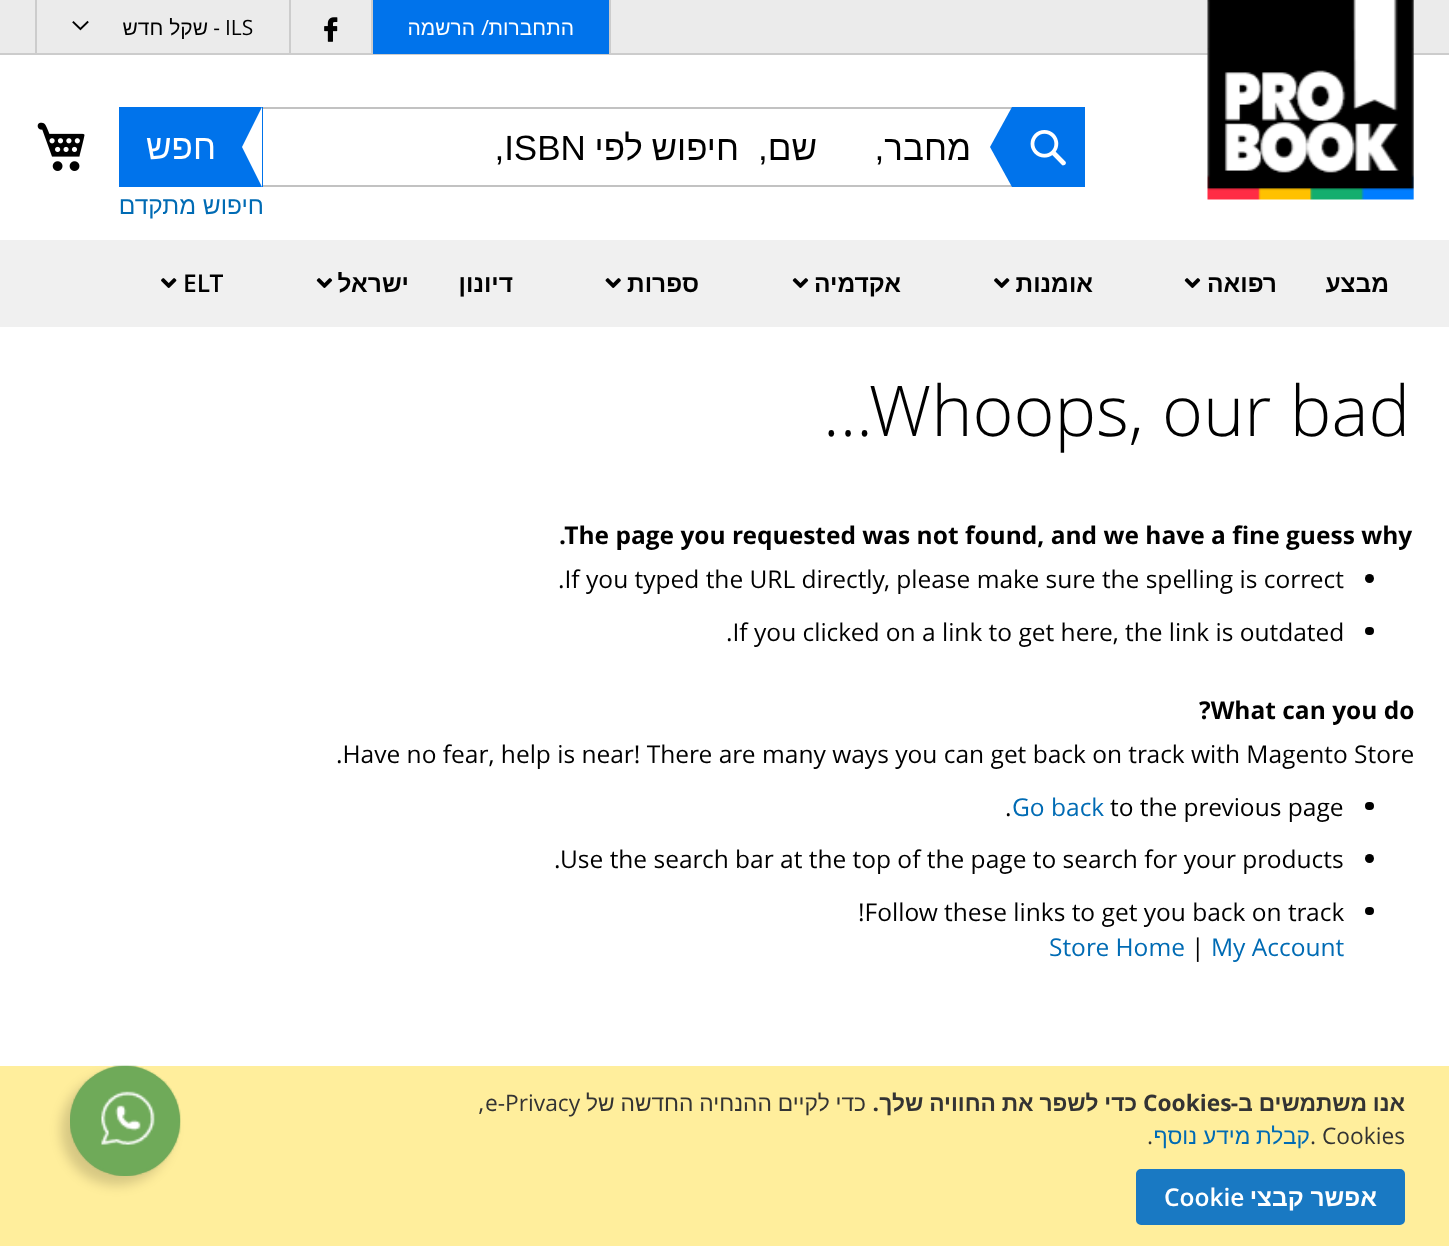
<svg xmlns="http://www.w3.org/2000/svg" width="1449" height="1246">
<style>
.a{font:21px Liberation Sans;direction:rtl;fill:#000}
.b{font:21px Open Sans;direction:rtl;fill:#000}
.c{font:21px Open Sans;fill:#000}
.d{font:21px Liberation Sans;direction:rtl;fill:#fff}
.e{font:21px Open Sans;direction:rtl;fill:#fff}
.f{font:35px Liberation Sans;direction:rtl;fill:#fff}
.g{font:35px Liberation Sans;direction:rtl;fill:#000}
.h{font:24.5px Liberation Sans;direction:rtl;fill:#006bb4}
.i{font:600 24.5px Open Sans;fill:#000}
.j{font:bold 24.5px Liberation Sans;direction:rtl;fill:#000}
.k{font:300 70px Open Sans;fill:#000}
.l{font:bold 24.5px Open Sans;fill:#000}
.m{font:24.5px Open Sans;fill:#000}
.n{font:24.5px Open Sans;fill:#006bb4}
.o{font:22.75px Open Sans;fill:#333}
.p{font:22.75px Liberation Sans;direction:rtl;fill:#333}
.q{font:bold 22.75px Liberation Sans;direction:rtl;fill:#333}
.r{font:bold 22.75px Open Sans;fill:#333}
.s{font:bold 22.75px Open Sans;direction:rtl;fill:#333}
.t{font:22.75px Open Sans;direction:rtl;fill:#333}
.u{font:22.75px Liberation Sans;direction:rtl;fill:#006bb4}
.v{font:600 24.5px Open Sans;fill:#fff}
.w{font:bold 24.5px Liberation Sans;direction:rtl;fill:#fff}
</style>
<rect width="100%" height="100%" fill="#fff"/>
<path fill="#ebebeb" d="M0 0h1449v53H0z"/>
<path fill="#ccc" d="M0 53h1449v2H0z"/>
<path fill="#ccc" d="M35 0h2v53H35z"/>
<image href="1.png" x="72" y="20" width="17" height="11"/>
<path fill="#ccc" d="M289 0h2v53H289z"/>
<image href="2.png" x="324" y="17" width="14" height="25"/>
<path fill="#ccc" d="M609 0h2v53H609z"/>
<path fill="#ccc" d="M371 0h2v53H371z"/>
<path fill="#0073eb" d="M373 0h236v54H373z"/>
<image href="3.png" x="37" y="122" width="48" height="49"/>
<path fill="none" stroke="#c2c2c2" stroke-width="2" d="M120 108h964v78H120z"/>
<path fill="#0073eb" d="M119 107h144v80H119z"/>
<path fill="#fff" d="M262 107v80l-20-40z"/>
<path fill="#0073eb" d="M1012 107v80l-22-40z"/>
<path fill="#0073eb" d="M1012 107h73v80H1012z"/>
<image href="4.png" x="1030" y="130" width="36" height="36"/>
<image href="5.png" x="1207" y="0" width="207" height="200"/>
<path fill="#f0f0f0" d="M0 240h1449v87H0z"/>
<image href="6.png" x="161" y="278" width="16" height="10"/>
<image href="7.png" x="316" y="278" width="17" height="10"/>
<image href="8.png" x="605" y="278" width="16" height="10"/>
<image href="7.png" x="792" y="278" width="17" height="10"/>
<image href="6.png" x="994" y="278" width="16" height="10"/>
<image href="7.png" x="1184" y="278" width="17" height="10"/>
<circle fill="#000" cx="1369.5" cy="578.5" r="4.5"/>
<rect fill="#000" x="1365" y="627" width="9" height="8" rx="4"/>
<rect fill="#000" x="1365" y="802" width="9" height="8" rx="4"/>
<circle fill="#000" cx="1369.5" cy="858.5" r="4.5"/>
<rect fill="#000" x="1365" y="907" width="9" height="8" rx="4"/>
<path fill="#ffee9c" d="M0 1066h1449v180H0z"/>
<rect fill="#00000029" filter="blur(6px)" x="61" y="1075" width="111" height="110" rx="55"/>
<circle fill="#7ca762" cx="125" cy="1121" r="55"/>
<image href="9.png" x="70" y="1065" width="111" height="111"/>
<rect fill="#1979c3" stroke="#1979c3" stroke-width="2" x="1137" y="1170" width="267" height="54" rx="4"/>
<text class="a" x="208" y="35">שקל חדש</text>
<text class="b" x="220" y="35">-</text>
<text class="c" x="225" y="35">ILS</text>
<text class="d" x="475" y="35">הרשמה</text>
<text class="e" x="489" y="35">/</text>
<text class="d" x="574" y="35">התחברות</text>
<text class="f" x="216" y="159">חפש</text>
<text class="g" x="739" y="160" word-spacing="-1">חיפוש לפי ISBN,</text>
<text class="g" x="817" y="160">שם,</text>
<text class="g" x="971" y="160">מחבר,</text>
<text class="h" x="264" y="214">חיפוש מתקדם</text>
<text class="i" x="183" y="292">ELT</text>
<text class="j" x="409" y="292">ישראל</text>
<text class="j" x="513" y="292">דיונון</text>
<text class="j" x="699" y="292">ספרות</text>
<text class="j" x="901" y="292">אקדמיה</text>
<text class="j" x="1093" y="292">אומנות</text>
<text class="j" x="1277" y="292">רפואה</text>
<text class="j" x="1389" y="292">מבצע</text>
<text class="k" x="823" y="436">...Whoops, our bad</text>
<text class="l" x="559" y="544">.The page you requested was not found, and we have a fine guess why</text>
<text class="m" x="558" y="588">.If you typed the URL directly, please make sure the spelling is correct</text>
<text class="m" x="726" y="641">.If you clicked on a link to get here, the link is outdated</text>
<text class="l" x="1199" y="719">?What can you do</text>
<text class="m" x="336" y="763">.Have no fear, help is near! There are many ways you can get back on track with Magento Store</text>
<text class="n" x="1012" y="816">Go back</text>
<text class="m" x="1110" y="816">to the previous page</text>
<text class="m" x="1005" y="816">.</text>
<text class="m" x="554" y="868">.Use the search bar at the top of the page to search for your products</text>
<text class="m" x="858" y="921">!Follow these links to get you back on track</text>
<text class="n" x="1049" y="956">Store Home</text>
<text class="m" x="1191" y="956">|</text>
<text class="n" x="1211" y="956">My Account</text>
<text class="o" x="485" y="1111">e-Privacy</text>
<text class="p" x="866" y="1111" word-spacing="-0.5">כדי לקיים ההנחיה החדשה של</text>
<text class="q" x="1137" y="1111" word-spacing="-0.5">כדי לשפר את החוויה שלך</text>
<text class="r" x="1143" y="1111">Cookies</text>
<text class="s" x="1238" y="1111">-</text>
<text class="q" x="1405" y="1111" word-spacing="-0.5">אנו משתמשים ב</text>
<text class="t" x="484" y="1111">,</text>
<text class="s" x="879" y="1111">.</text>
<text class="o" x="1147" y="1144">.</text>
<text class="u" x="1310" y="1144" word-spacing="-0.5">קבלת מידע נוסף</text>
<text class="o" x="1310" y="1144">. Cookies</text>
<text class="v" x="1164" y="1206">Cookie</text>
<text class="w" x="1377" y="1206">אפשר קבצי</text>
</svg>
